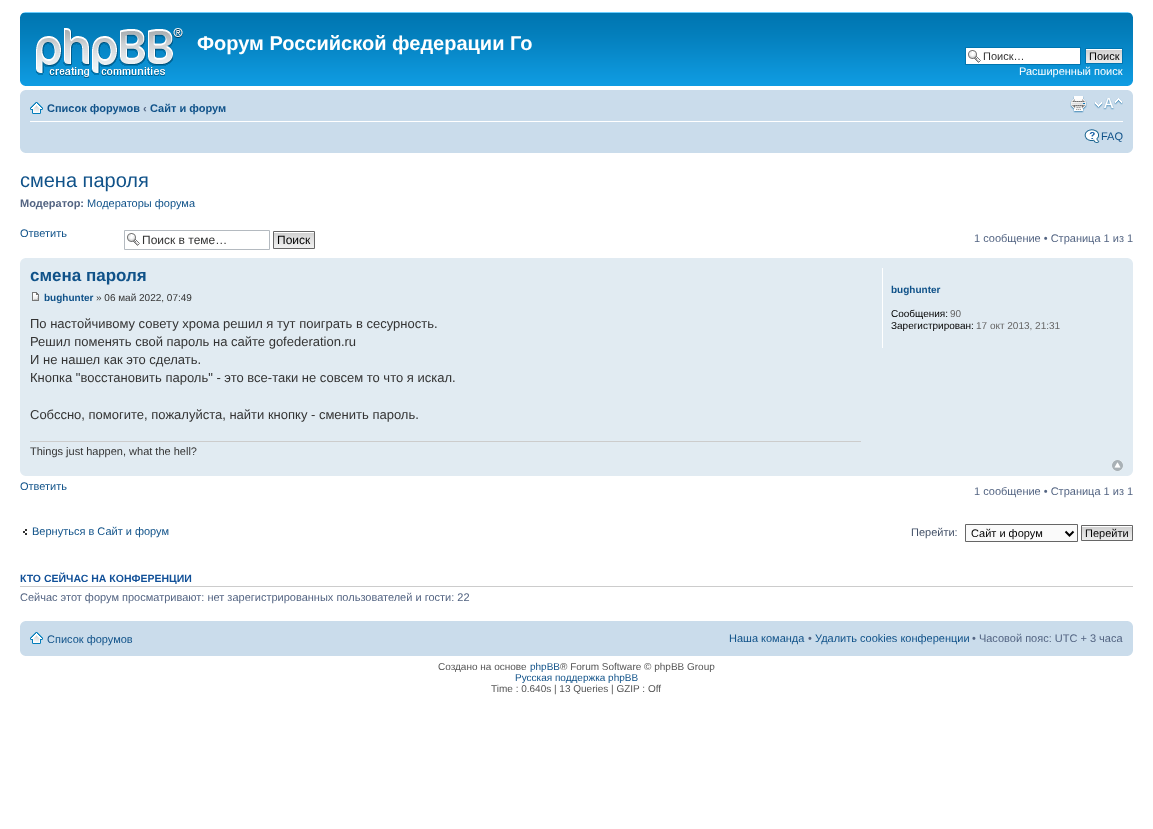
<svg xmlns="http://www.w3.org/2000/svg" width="1153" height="829">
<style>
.a{font:bold 20px Liberation Sans;fill:#fff}
.b{font:11px Liberation Sans;fill:#333}
.c{font:11px Liberation Sans;fill:#000}
.d{font:11px Liberation Sans;fill:#fff}
.e{font:bold 11px Liberation Sans;fill:#105289}
.f{font:bold 11px Liberation Sans;fill:#536482}
.g{font:11px Liberation Sans;fill:#105289}
.h{font:20px Liberation Sans;fill:#105289}
.i{font:12px Liberation Sans;fill:#333}
.j{font:12px Liberation Sans;fill:#000}
.k{font:11px Liberation Sans;fill:#536482}
.l{font:bold 17px Liberation Sans;fill:#105289}
.m{font:bold 10px Liberation Sans;fill:#105289}
.n{font:10px Liberation Sans;fill:#333}
.o{font:13px Liberation Sans;fill:#333}
.p{font:10px Liberation Sans;fill:#000}
.q{font:10px Liberation Sans;fill:#666}
.r{font:11px Liberation Sans;fill:#425067}
.s{font:bold 10.5px Liberation Sans;fill:#115098}
.t{font:10px Liberation Sans;fill:#555}
.u{font:10px Liberation Sans;fill:#105289}
</style>
<rect width="100%" height="100%" fill="#fff"/>
<image href="1.png" x="20" y="12" width="1113" height="74"/>
<image href="2.png" x="20" y="12" width="5" height="5"/>
<image href="3.png" x="1128" y="12" width="5" height="5"/>
<image href="4.png" x="36" y="28" width="147" height="50"/>
<path fill="#fff" d="M966 48h114v16H966z"/>
<image href="5.png" x="968" y="50" width="13" height="13"/>
<path fill="none" stroke="#0075b0" d="M965.5 47.5h115v17H965.5z"/>
<image href="6.png" x="1086" y="49" width="36" height="14"/>
<path fill="none" stroke="#0075b0" d="M1085.5 48.5h37v15H1085.5z"/>
<image href="7.png" x="20" y="81" width="5" height="5"/>
<image href="8.png" x="1128" y="81" width="5" height="5"/>
<path fill="#cadceb" d="M20 90h1113v63H20z"/>
<image href="9.png" x="20" y="90" width="5" height="5"/>
<image href="10.png" x="1128" y="90" width="5" height="5"/>
<path fill="#fff" d="M30 121h1093v1H30z"/>
<image href="11.png" x="30" y="102" width="13" height="12"/>
<image href="12.png" x="1070" y="96" width="17" height="17"/>
<image href="13.png" x="1094" y="98" width="29" height="12"/>
<image href="14.png" x="1084" y="129" width="16" height="14"/>
<image href="15.png" x="20" y="148" width="5" height="5"/>
<image href="16.png" x="1128" y="148" width="5" height="5"/>
<image href="5.png" x="127" y="233" width="13" height="13"/>
<path fill="none" stroke="#b4bac0" d="M124.5 230.5h145v19H124.5z"/>
<image href="17.png" x="274" y="232" width="40" height="16"/>
<path fill="none" stroke="#666" d="M273.5 231.5h41v17H273.5z"/>
<path fill="#e1ebf2" d="M20 258h1113v218H20z"/>
<image href="18.png" x="20" y="258" width="5" height="5"/>
<image href="19.png" x="1128" y="258" width="5" height="5"/>
<image href="20.png" x="32" y="292" width="7" height="9"/>
<path fill="#ccc" d="M30 441h831v1H30z"/>
<path fill="#fff" d="M882 268h1v80H882z"/>
<image href="21.png" x="1112" y="460" width="11" height="11"/>
<image href="22.png" x="20" y="471" width="5" height="5"/>
<image href="23.png" x="1128" y="471" width="5" height="5"/>
<image href="24.png" x="23" y="529" width="4" height="6"/>
<path fill="#fafafa" stroke="#666" d="M965.5 524.5h112v17H965.5z"/>
<path fill="none" stroke="#000" stroke-width="2" d="M1065.5 531.5l4 4l4-4"/>
<image href="25.png" x="1082" y="526" width="50" height="14"/>
<path fill="none" stroke="#666" d="M1081.5 525.5h51v15H1081.5z"/>
<path fill="#ccc" d="M20 586h1113v1H20z"/>
<path fill="#cadceb" d="M20 621h1113v35H20z"/>
<image href="9.png" x="20" y="621" width="5" height="5"/>
<image href="10.png" x="1128" y="621" width="5" height="5"/>
<image href="11.png" x="30" y="632" width="13" height="12"/>
<image href="15.png" x="20" y="651" width="5" height="5"/>
<image href="16.png" x="1128" y="651" width="5" height="5"/>
<text class="a" x="197" y="50">Форум Российской федерации Го</text>
<text class="b" x="983" y="60">Поиск…</text>
<text class="c" x="1089" y="60">Поиск</text>
<text class="d" x="1019" y="75">Расширенный поиск</text>
<text class="e" x="47" y="112">Список форумов</text>
<text class="f" x="143" y="112">‹</text>
<text class="e" x="150" y="112">Сайт и форум</text>
<text class="g" x="1101" y="140">FAQ</text>
<text class="h" x="20" y="187">смена пароля</text>
<text class="f" x="20" y="207">Модератор:</text>
<text class="g" x="87" y="207">Модераторы форума</text>
<text class="g" x="20" y="237">Ответить</text>
<text class="i" x="142" y="244">Поиск в теме…</text>
<text class="j" x="277" y="244">Поиск</text>
<text class="k" x="974" y="242">1 сообщение • Страница 1 из 1</text>
<text class="l" x="30" y="281">смена пароля</text>
<text class="m" x="44" y="301">bughunter</text>
<text class="n" x="96" y="301">» 06 май 2022, 07:49</text>
<text class="o" x="30" y="328">По настойчивому совету хрома решил я тут поиграть в сесурность.</text>
<text class="o" x="30" y="346">Решил поменять свой пароль на сайте gofederation.ru</text>
<text class="o" x="30" y="364">И не нашел как это сделать.</text>
<text class="o" x="30" y="382">Кнопка "восстановить пароль" - это все-таки не совсем то что я искал.</text>
<text class="o" x="30" y="419">Собссно, помогите, пожалуйста, найти кнопку - сменить пароль.</text>
<text class="b" x="30" y="455">Things just happen, what the hell?</text>
<text class="m" x="891" y="293">bughunter</text>
<text class="p" x="891" y="317">Сообщения:</text>
<text class="q" x="950" y="317">90</text>
<text class="p" x="891" y="329">Зарегистрирован:</text>
<text class="q" x="976" y="329">17 окт 2013, 21:31</text>
<text class="g" x="20" y="490">Ответить</text>
<text class="k" x="974" y="495">1 сообщение • Страница 1 из 1</text>
<text class="g" x="32" y="535">Вернуться в Сайт и форум</text>
<text class="r" x="911" y="536">Перейти:</text>
<text class="c" x="971" y="537">Сайт и форум</text>
<text class="c" x="1085" y="537">Перейти</text>
<text class="s" x="20" y="582">КТО СЕЙЧАС НА КОНФЕРЕНЦИИ</text>
<text class="k" x="20" y="601">Сейчас этот форум просматривают: нет зарегистрированных пользователей и гости: 22</text>
<text class="g" x="47" y="643">Список форумов</text>
<text class="g" x="729" y="642">Наша команда</text>
<text class="k" x="808" y="642">•</text>
<text class="g" x="815" y="642">Удалить cookies конференции</text>
<text class="k" x="972" y="642">• Часовой пояс: UTC + 3 часа</text>
<text class="t" x="438" y="670">Создано на основе</text>
<text class="u" x="530" y="670">phpBB</text>
<text class="t" x="560" y="670">® Forum Software © phpBB Group</text>
<text class="u" x="515" y="681">Русская поддержка phpBB</text>
<text class="t" x="491" y="692">Time : 0.640s | 13 Queries | GZIP : Off</text>
</svg>
